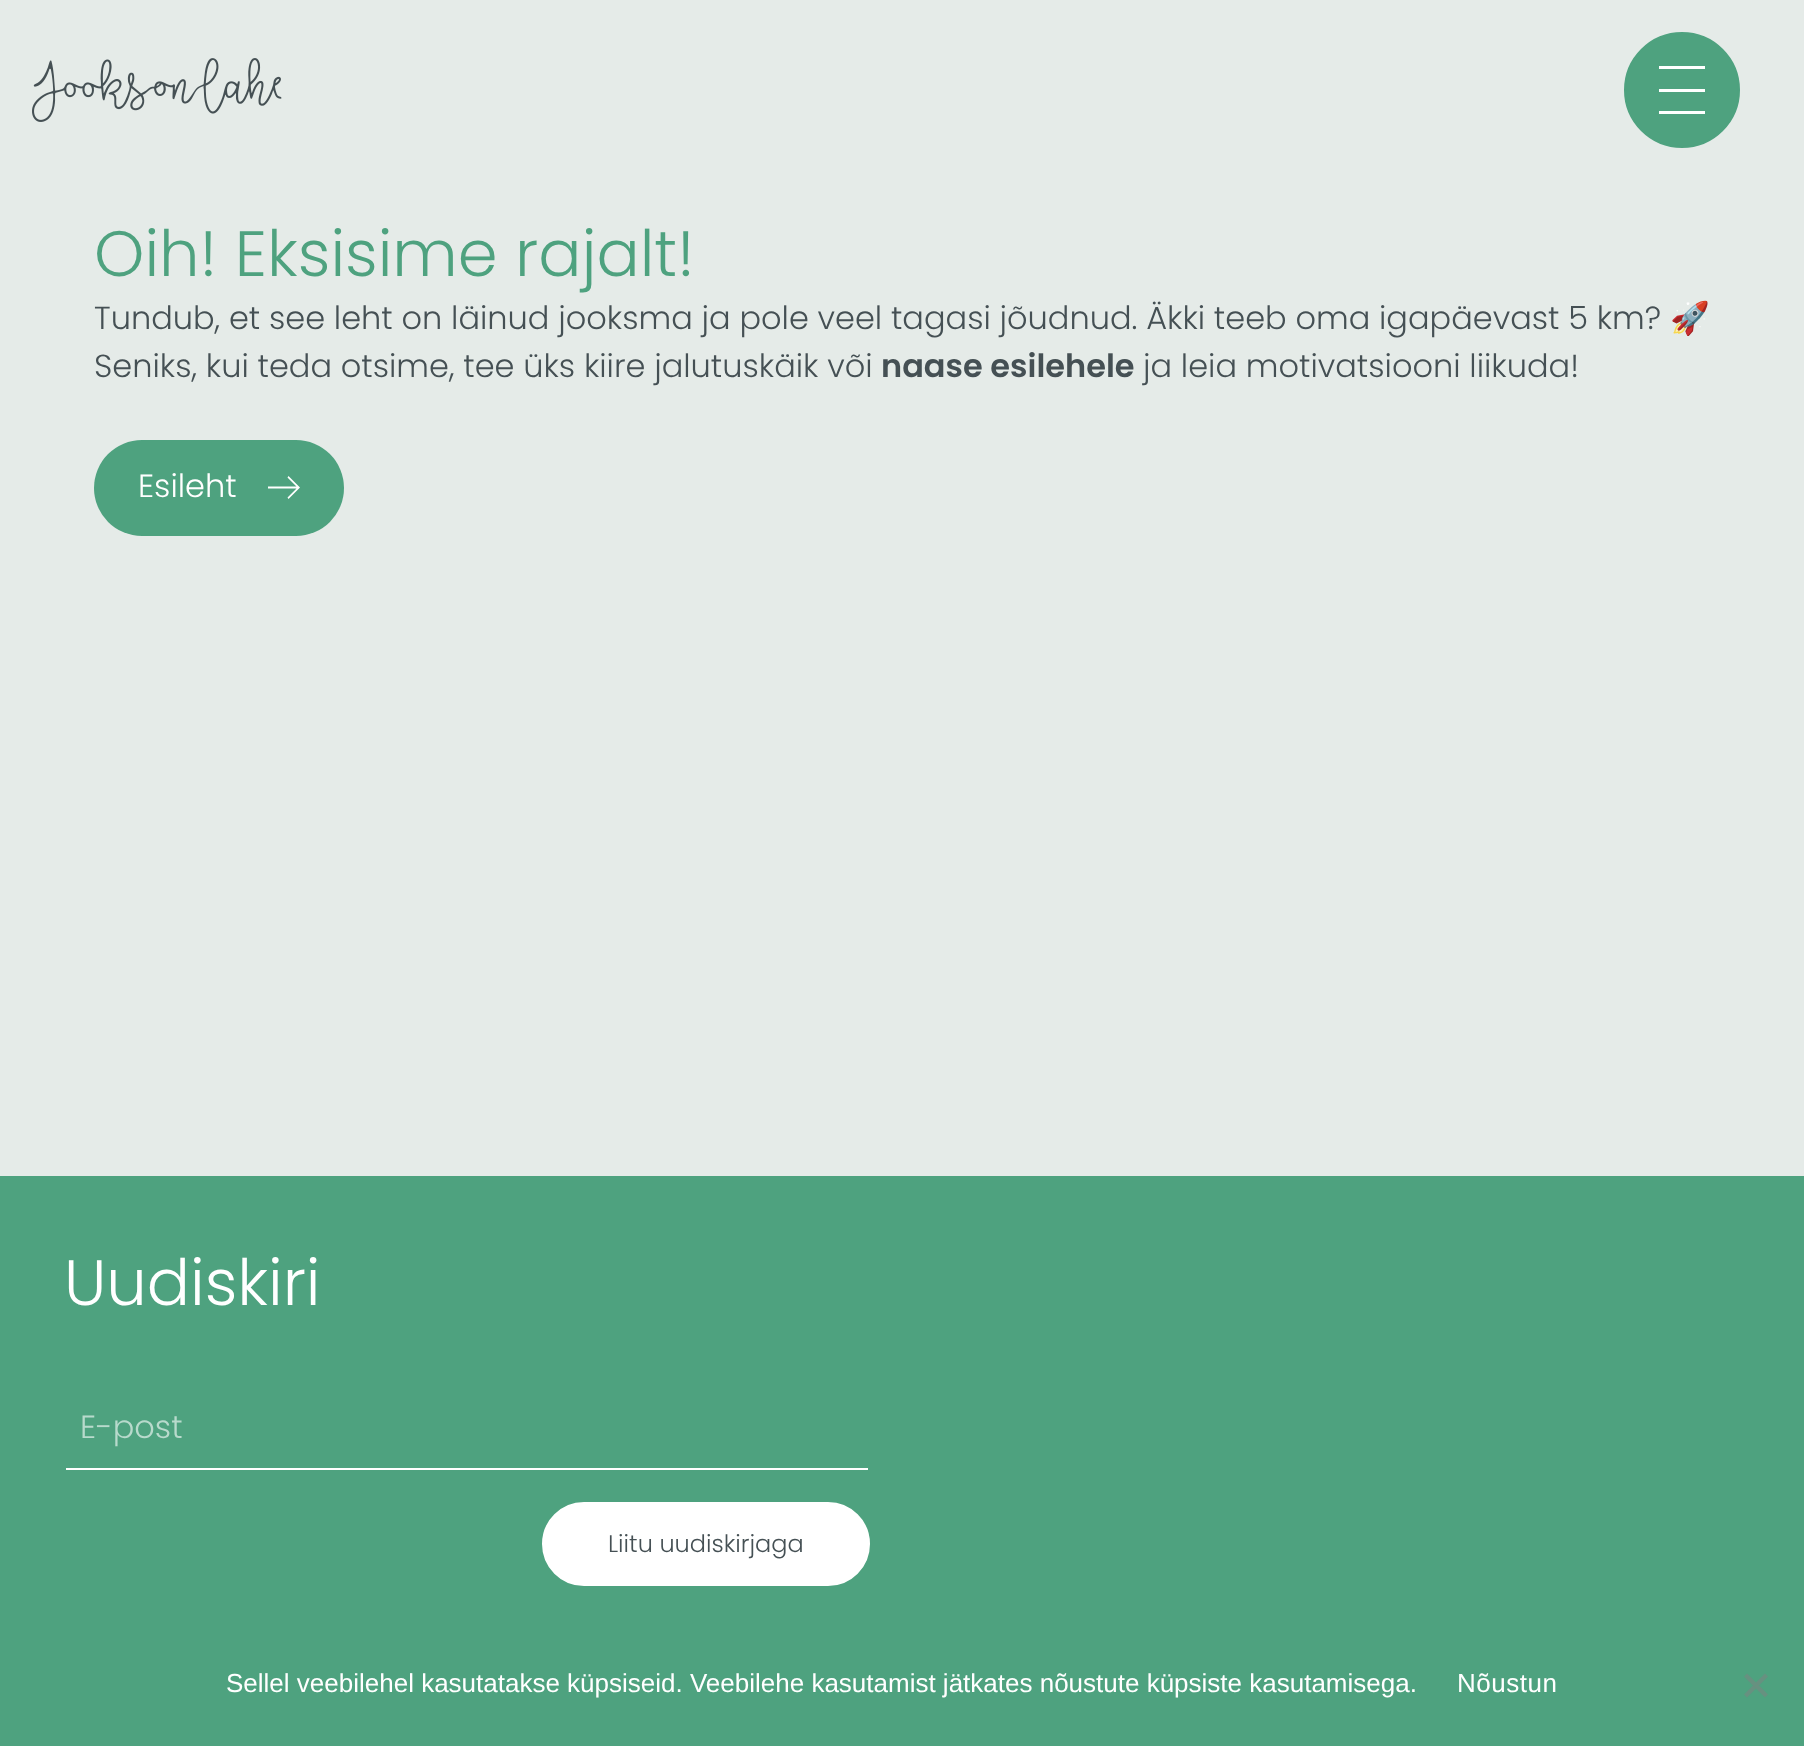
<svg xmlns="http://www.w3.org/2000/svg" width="1804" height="1746">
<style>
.a{font:300 64px Poppins;fill:#4ea27f}
.b{font:300 32px Poppins;fill:#455054}
.c{font:32px Noto Color Emoji;fill:#455054}
.d{font:600 32px Poppins;fill:#455054}
.e{font:300 32px Poppins;fill:#fff}
.f{font:300 64px Poppins;fill:#fff}
.g{font:300 32px Poppins;fill:#b8dacc}
.h{font:300 24px Poppins;fill:#455054}
.i{font:26px Liberation Sans;fill:#fff}
.j{font:26px Liberation Sans;letter-spacing:0.5px;fill:#fff}
</style>
<rect width="100%" height="100%" fill="#e5ebe8"/>
<image href="1.png" x="32" y="58" width="250" height="64"/>
<circle fill="#4ea27f" stroke="#4ea27f" stroke-width="2" cx="1682" cy="90" r="57"/>
<path fill="#fff" d="M1659 66h46v3H1659z"/>
<path fill="#fff" d="M1659 89h46v3H1659z"/>
<path fill="#fff" d="M1659 111h46v3H1659z"/>
<rect fill="#4ea27f" x="94" y="440" width="250" height="96" rx="48"/>
<path fill="#fff" d="M288.5 499l-1-1.5l9-9h-28.5v-2h28.5l-9-9l1-1.5l11.5 11.5z"/>
<path fill="#4ea27f" d="M0 1176h1804v570H0z"/>
<path fill="#fff" d="M66 1468h802v2H66z"/>
<rect fill="#fff" stroke="#fff" stroke-width="2" x="543" y="1503" width="326" height="82" rx="41"/>
<path fill="#679180" d="M1765 1673.5l3 3l-21 21l-3-3z"/>
<path fill="#679180" d="M1744 1676.5l3-3l21 21l-3 3z"/>
<text class="a" x="94" y="276">Oih! Eksisime rajalt!</text>
<text class="b" x="94" y="329">Tundub, et see leht on läinud jooksma ja pole veel tagasi jõudnud. Äkki teeb oma igapäevast 5 km?</text>
<text class="c" x="1670" y="329">🚀</text>
<text class="b" x="94" y="377">Seniks, kui teda otsime, tee üks kiire jalutuskäik või</text>
<text class="d" x="881" y="377">naase esilehele</text>
<text class="b" x="1143" y="377">ja leia motivatsiooni liikuda!</text>
<text class="e" x="138" y="497">Esileht</text>
<text class="f" x="64" y="1305">Uudiskiri</text>
<text class="g" x="80" y="1438">E-post</text>
<text class="h" x="608" y="1552">Liitu uudiskirjaga</text>
<text class="i" x="226" y="1692">Sellel veebilehel kasutatakse küpsiseid. Veebilehe kasutamist jätkates nõustute küpsiste kasutamisega.</text>
<text class="j" x="1457" y="1692">Nõustun</text>
</svg>
